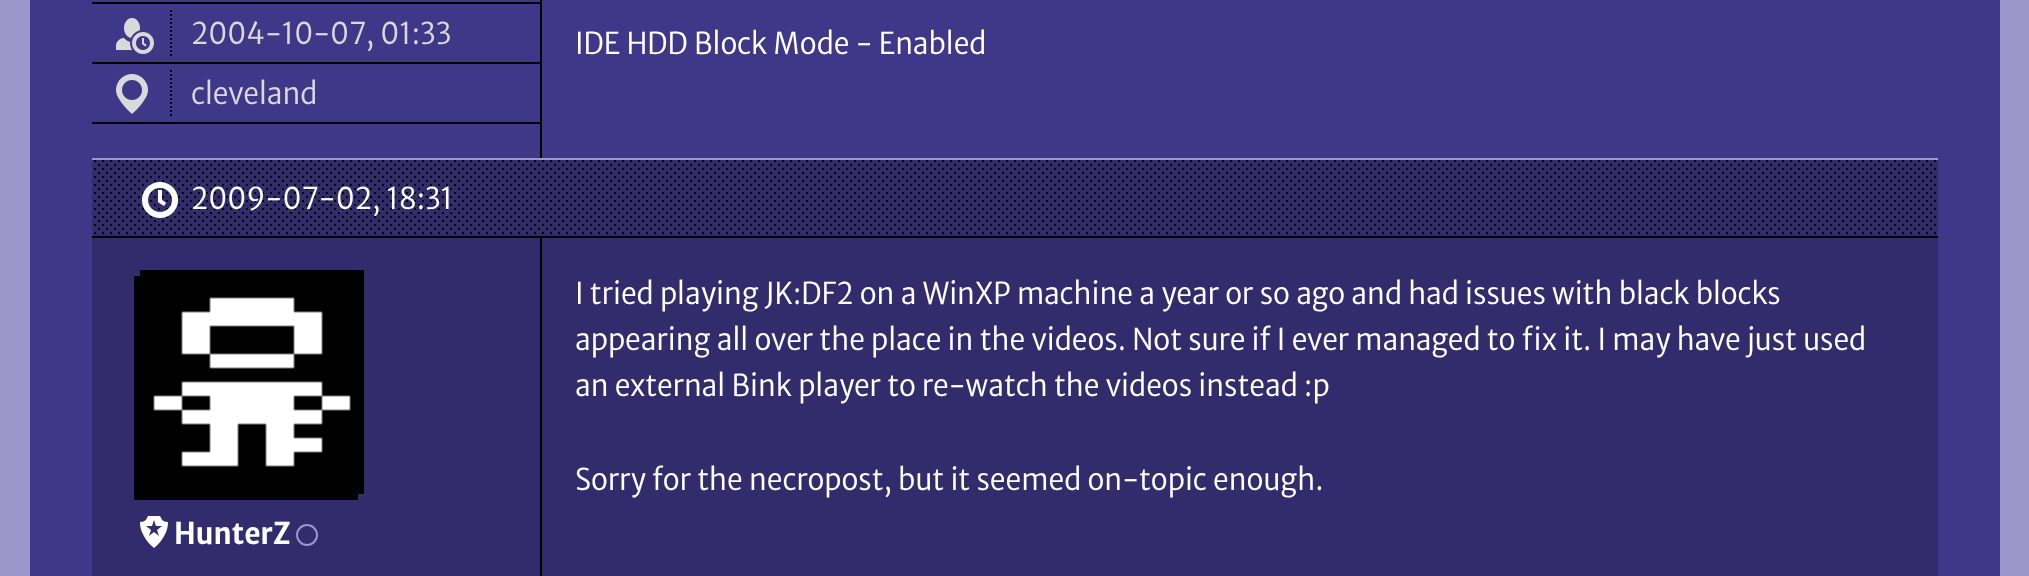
<svg xmlns="http://www.w3.org/2000/svg" width="2029" height="576">
<style>
.a{font:30px Merriweather Sans;fill:#d9d9d9}
.b{font:30px Merriweather Sans;fill:#fff}
.c{font:bold 30px Merriweather Sans;fill:#fff}
</style>
<rect width="100%" height="100%" fill="#3f3788"/>
<path fill="none" stroke="#9b97cb" stroke-width="30" d="M15 -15h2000v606H15z"/>
<path fill="#000" d="M92 2h448v2H92z"/>
<path fill="#000" d="M92 62h448v2H92z"/>
<image href="1.png" x="116" y="18" width="38" height="36"/>
<path fill="none" stroke="#000" stroke-width="2" stroke-dasharray="2 2" d="M171 10v46"/>
<path fill="#000" d="M92 122h448v2H92z"/>
<image href="2.png" x="116" y="74" width="32" height="40"/>
<path fill="none" stroke="#000" stroke-width="2" stroke-dasharray="2 2" d="M171 70v46"/>
<path fill="#000" d="M540 0h2v158H540z"/>
<path fill="#322c6d" d="M92 160h1846v416H92z"/>
<path fill="#9b97cb" d="M92 158h1846v2H92z"/>
<image href="3.png" x="94" y="160" width="1842" height="74"/>
<path fill="#000" d="M92 236h1846v2H92z"/>
<image href="4.png" x="142" y="182" width="36" height="36"/>
<path fill="#000" d="M540 238h2v338H540z"/>
<image href="5.png" x="134" y="270" width="230" height="230"/>
<image href="6.png" x="140" y="516" width="28" height="32"/>
<circle fill="none" stroke="#9b97cb" stroke-width="2" cx="307" cy="535" r="10"/>
<text class="a" x="191" y="44">2004-10-07, 01:33</text>
<text class="a" x="191" y="104">cleveland</text>
<text class="b" x="575" y="54">IDE HDD Block Mode - Enabled</text>
<text class="b" x="191" y="209">2009-07-02, 18:31</text>
<text class="b" x="575" y="304">I tried playing JK:DF2 on a WinXP machine a year or so ago and had issues with black blocks</text>
<text class="b" x="575" y="350">appearing all over the place in the videos. Not sure if I ever managed to fix it. I may have just used</text>
<text class="b" x="575" y="396">an external Bink player to re-watch the videos instead :p</text>
<text class="b" x="575" y="490">Sorry for the necropost, but it seemed on-topic enough.</text>
<text class="c" x="174" y="544">HunterZ</text>
</svg>
